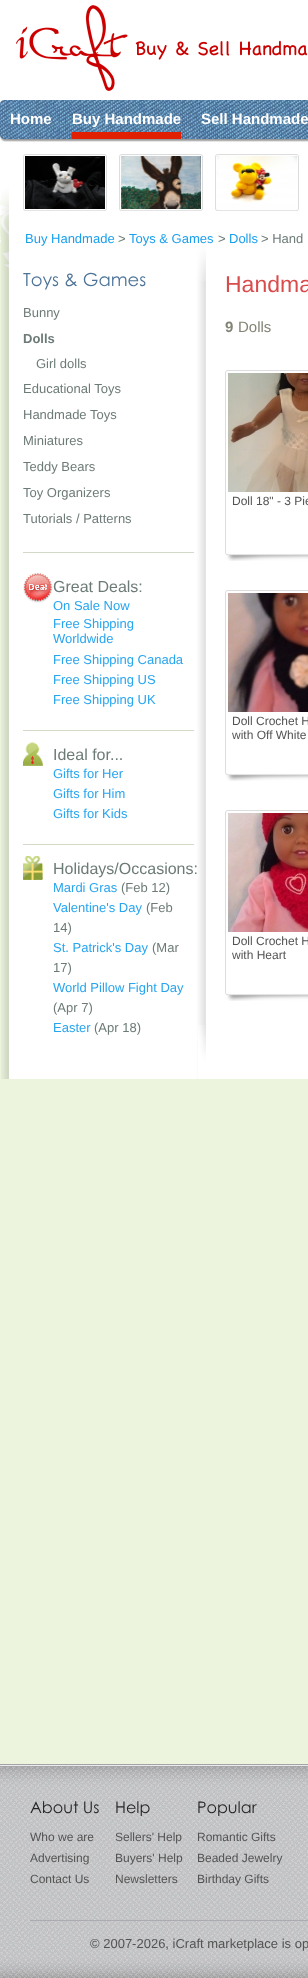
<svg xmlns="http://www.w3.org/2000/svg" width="308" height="1978">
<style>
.a{font:bold 15px Liberation Sans;fill:#fff}
.b{font:13px Liberation Sans;fill:#199fee}
.c{font:13px Liberation Sans;fill:#6d7b78}
.d{font:18px Century Gothic;fill:#4d7397}
.e{font:bold 13px Liberation Sans;fill:#6d7b78}
.f{font:16px Liberation Sans;fill:#6d7b78}
.g{font:13px Liberation Sans;fill:#28a5ef}
.h{font:23px Liberation Sans;fill:#d94c4c}
.i{font:bold 15px Liberation Sans;fill:#838375}
.j{font:15px Liberation Sans;fill:#838375}
.k{font:12px Liberation Sans;fill:#535353}
.l{font:16px Century Gothic;fill:#252323}
.m{font:13px Liberation Sans;fill:#535353}
</style>
<rect width="100%" height="100%" fill="#ecf4de"/>
<image href="1.png" x="0" y="0" width="308" height="316"/>
<image href="2.png" x="16" y="5" width="291" height="86"/>
<image href="3.png" x="0" y="100" width="308" height="42"/>
<path fill="#e02000" d="M72 132h109v7H72z"/>
<image href="4.png" x="1" y="142" width="307" height="937"/>
<image href="5.png" x="0" y="142" width="206" height="139"/>
<image href="6.png" x="198" y="1025" width="8" height="54"/>
<image href="7.png" x="23" y="154" width="84" height="57"/>
<image href="8.png" x="25" y="156" width="80" height="53"/>
<image href="7.png" x="119" y="154" width="84" height="57"/>
<image href="9.png" x="121" y="156" width="80" height="53"/>
<image href="7.png" x="215" y="154" width="84" height="57"/>
<image href="10.png" x="217" y="156" width="80" height="47"/>
<path fill="#d2d9c6" d="M23 552h171v1H23z"/>
<image href="11.png" x="23" y="573" width="30" height="30"/>
<path fill="#d2d9c6" d="M23 730h171v1H23z"/>
<image href="12.png" x="23" y="742" width="20" height="24"/>
<path fill="#d2d9c6" d="M23 844h171v1H23z"/>
<image href="13.png" x="23" y="856" width="20" height="24"/>
<path fill="#ddd" d="M225 370h1v191H225z"/>
<image href="14.png" x="225" y="370" width="83" height="2"/>
<image href="15.png" x="225" y="553" width="83" height="8"/>
<image href="16.png" x="228" y="373" width="80" height="119"/>
<path fill="#ddd" d="M225 590h1v191H225z"/>
<image href="14.png" x="225" y="590" width="83" height="2"/>
<image href="15.png" x="225" y="773" width="83" height="8"/>
<image href="17.png" x="228" y="593" width="80" height="119"/>
<path fill="#ddd" d="M225 810h1v191H225z"/>
<image href="14.png" x="225" y="810" width="83" height="2"/>
<image href="15.png" x="225" y="993" width="83" height="8"/>
<image href="18.png" x="228" y="813" width="80" height="119"/>
<image href="19.png" x="0" y="1764" width="308" height="214"/>
<path fill="#aaacb1" d="M30 1920h278v1H30z"/>
<text class="a" x="10" y="124">Home</text>
<text class="a" x="72" y="124">Buy Handmade</text>
<text class="a" x="201" y="124">Sell Handmade</text>
<text class="b" x="25" y="243">Buy Handmade</text>
<text class="c" x="118" y="243">&gt;</text>
<text class="b" x="129" y="243">Toys &amp; Games</text>
<text class="c" x="218" y="243">&gt;</text>
<text class="b" x="229" y="243">Dolls</text>
<text class="c" x="261" y="243">&gt; Hand</text>
<text class="d" x="23" y="286">Toys &amp; Games</text>
<text class="c" x="23" y="317">Bunny</text>
<text class="e" x="23" y="343">Dolls</text>
<text class="c" x="36" y="368">Girl dolls</text>
<text class="c" x="23" y="393">Educational Toys</text>
<text class="c" x="23" y="419">Handmade Toys</text>
<text class="c" x="23" y="445">Miniatures</text>
<text class="c" x="23" y="471">Teddy Bears</text>
<text class="c" x="23" y="497">Toy Organizers</text>
<text class="c" x="23" y="523">Tutorials / Patterns</text>
<text class="f" x="53" y="592">Great Deals:</text>
<text class="g" x="53" y="610">On Sale Now</text>
<text class="g" x="53" y="628">Free Shipping</text>
<text class="g" x="53" y="643">Worldwide</text>
<text class="g" x="53" y="664">Free Shipping Canada</text>
<text class="g" x="53" y="684">Free Shipping US</text>
<text class="g" x="53" y="704">Free Shipping UK</text>
<text class="f" x="53" y="760">Ideal for...</text>
<text class="g" x="53" y="778">Gifts for Her</text>
<text class="g" x="53" y="798">Gifts for Him</text>
<text class="g" x="53" y="818">Gifts for Kids</text>
<text class="f" x="53" y="874">Holidays/Occasions:</text>
<text class="g" x="53" y="892">Mardi Gras</text>
<text class="c" x="121" y="892">(Feb 12)</text>
<text class="g" x="53" y="912">Valentine's Day</text>
<text class="c" x="146" y="912">(Feb</text>
<text class="c" x="53" y="932">14)</text>
<text class="g" x="53" y="952">St. Patrick's Day</text>
<text class="c" x="152" y="952">(Mar</text>
<text class="c" x="53" y="972">17)</text>
<text class="g" x="53" y="992">World Pillow Fight Day</text>
<text class="c" x="53" y="1012">(Apr 7)</text>
<text class="g" x="53" y="1032">Easter</text>
<text class="c" x="94" y="1032">(Apr 18)</text>
<text class="h" x="225" y="292">Handma</text>
<text class="i" x="225" y="332">9</text>
<text class="j" x="238" y="332">Dolls</text>
<text class="k" x="232" y="505">Doll 18" - 3 Pie</text>
<text class="k" x="232" y="725">Doll Crochet H</text>
<text class="k" x="232" y="739">with Off White</text>
<text class="k" x="232" y="945">Doll Crochet H</text>
<text class="k" x="232" y="959">with Heart</text>
<text class="l" x="30" y="1813">About Us</text>
<text class="k" x="30" y="1841">Who we are</text>
<text class="k" x="30" y="1862">Advertising</text>
<text class="k" x="30" y="1883">Contact Us</text>
<text class="l" x="115" y="1813">Help</text>
<text class="k" x="115" y="1841">Sellers' Help</text>
<text class="k" x="115" y="1862">Buyers' Help</text>
<text class="k" x="115" y="1883">Newsletters</text>
<text class="l" x="197" y="1813">Popular</text>
<text class="k" x="197" y="1841">Romantic Gifts</text>
<text class="k" x="197" y="1862">Beaded Jewelry</text>
<text class="k" x="197" y="1883">Birthday Gifts</text>
<text class="m" x="90" y="1948">© 2007-2026, iCraft marketplace is op</text>
</svg>
